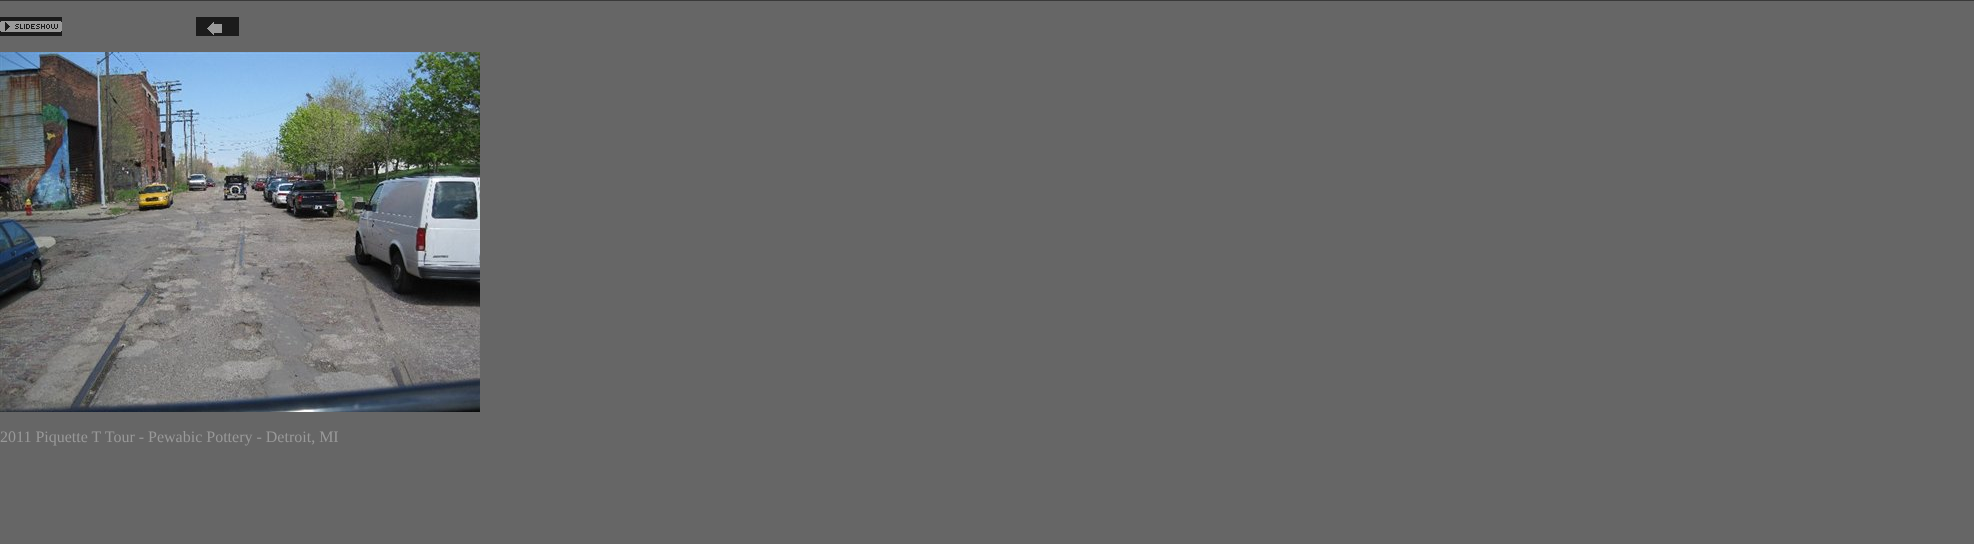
<svg xmlns="http://www.w3.org/2000/svg" width="1974" height="544">
<style>
.a{font:16px Liberation Serif;fill:#999}
</style>
<rect width="100%" height="100%" fill="#666"/>
<path fill="#393939" d="M0 0h1974v1H0z"/>
<image href="1.png" x="0" y="17" width="62" height="19"/>
<image href="2.png" x="196" y="17" width="43" height="19"/>
<image href="3.png" x="0" y="52" width="480" height="360"/>
<text class="a" x="0" y="442">2011 Piquette T Tour - Pewabic Pottery - Detroit, MI</text>
</svg>
